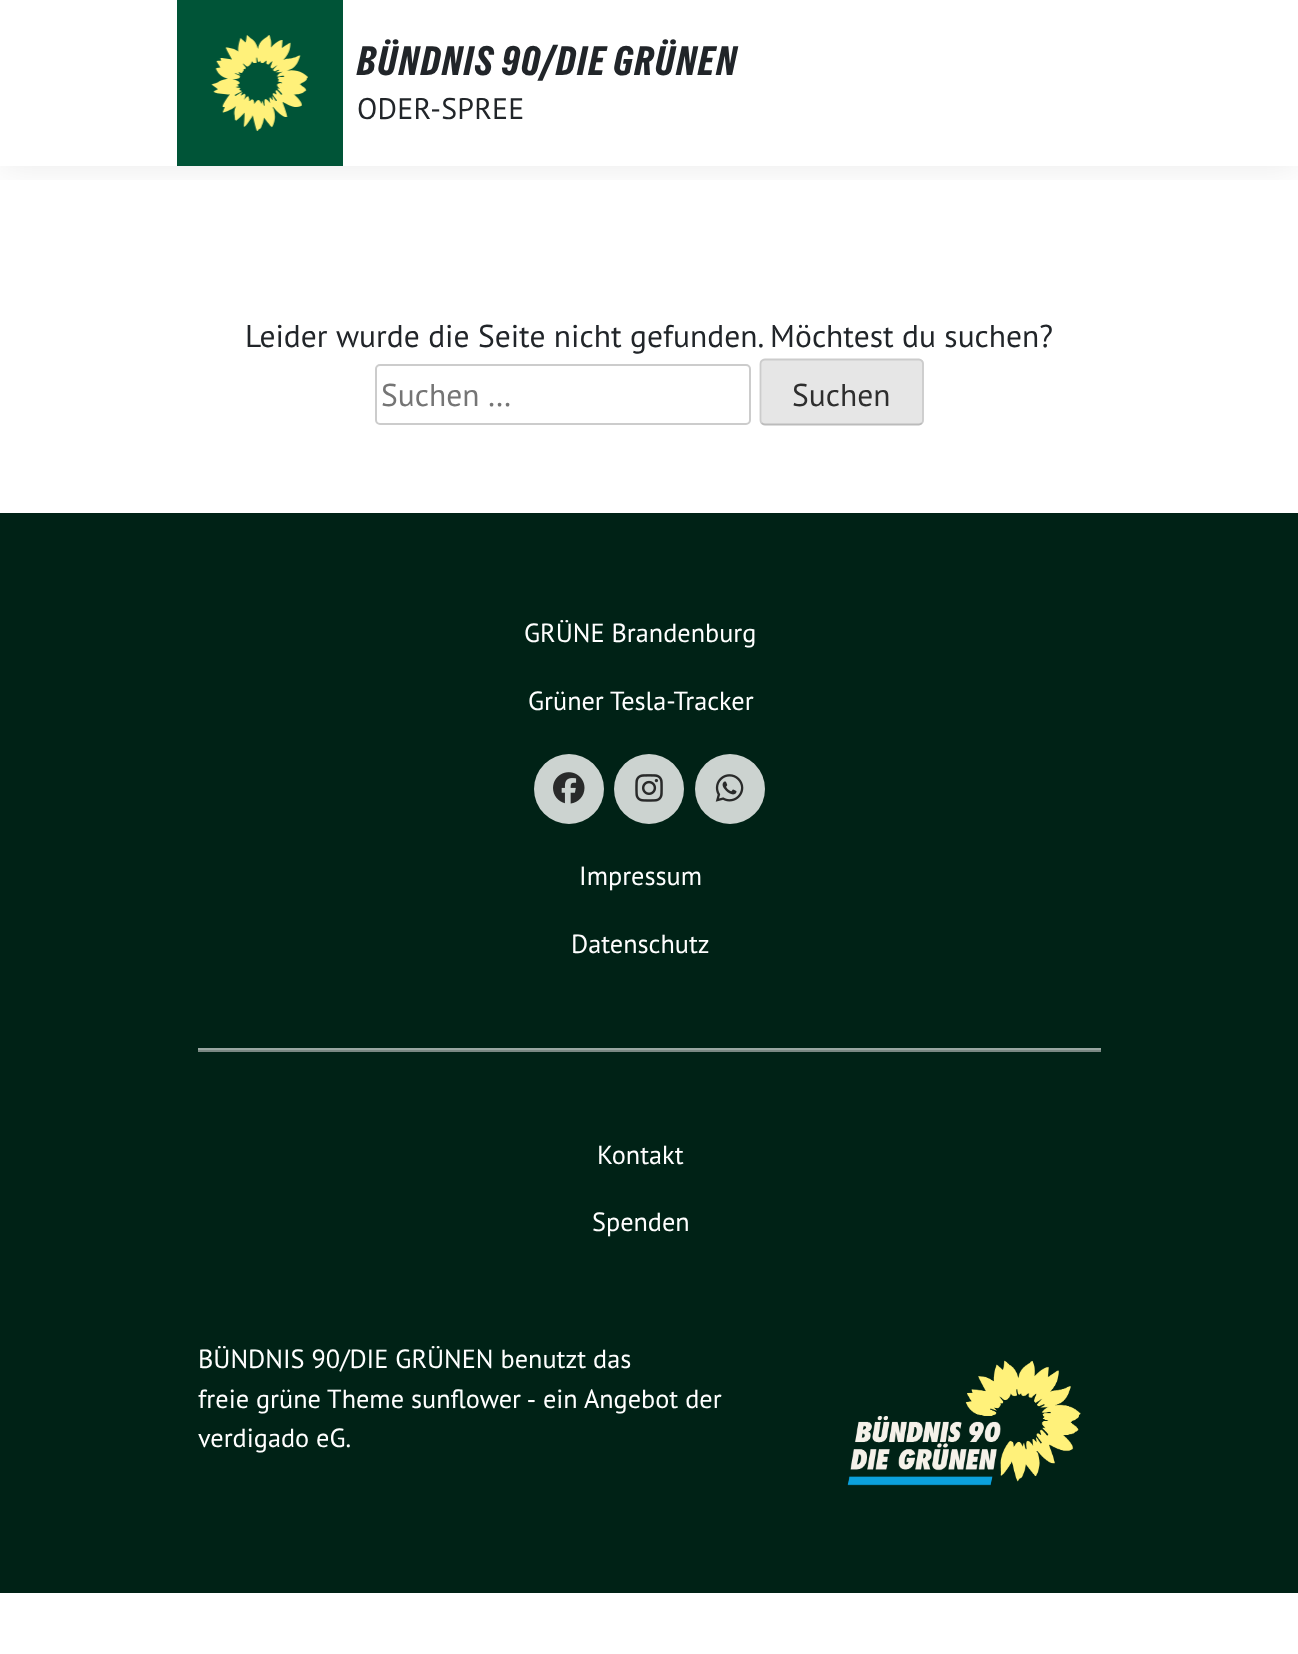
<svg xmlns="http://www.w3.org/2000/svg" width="1298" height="1654">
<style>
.a{font:38.5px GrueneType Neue;letter-spacing:1.75px;fill:#212529}
.b{font:29.75px PT Sans;letter-spacing:0.25px;fill:#212529}
.c{font:31.5px PT Sans;fill:#212529}
.d{font:31.5px PT Sans;fill:#757575}
.e{font:31.5px PT Sans;fill:#2e2e2e}
.f{font:26.25px PT Sans;fill:#fff}
.g{font:26.25px Liberation Sans;fill:#fff}
</style>
<defs>
<clipPath id="clip1"><path d="M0 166h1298v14H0z"/></clipPath>
</defs>
<rect width="100%" height="100%" fill="#fff"/>
<g clip-path="url(#clip1)">
<path fill="#00000014" filter="blur(17.5px)" d="M0 2h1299v166H0z"/>
</g>
<path fill="#005437" d="M177 0h166v166H177z"/>
<image href="1.png" x="211" y="35" width="97" height="96"/>
<rect fill="none" stroke="#ccc" stroke-width="2" x="376" y="365" width="374" height="59" rx="4"/>
<rect fill="#e6e6e6" x="760" y="359" width="164" height="66" rx="5"/>
<path fill="none" stroke="#bbb" stroke-width="1.8" d="M922 423c-1 1-2 1.5-3 1.5h-154c-1.5 0-2.5-.5-3.5-1.5"/>
<path fill="none" stroke="#ccc" stroke-width="1.8" d="M761.5 423c-.5-.5-1-2-1-3v-56c0-1 .5-2.5 1-3c1-1 2-1.5 3.5-1.5h154c1 0 2 .5 3 1.5c.5 .5 1 2 1 3v56c0 1-.5 2.5-1 3"/>
<path fill="#002216" d="M0 513h1298v1080H0z"/>
<circle fill="#ccd3d0" cx="569" cy="789" r="35"/>
<image href="2.png" x="553" y="772" width="32" height="32"/>
<circle fill="#ccd3d0" cx="649" cy="789" r="35"/>
<image href="3.png" x="635" y="774" width="28" height="28"/>
<circle fill="#ccd3d0" cx="730" cy="789" r="35"/>
<image href="4.png" x="715" y="774" width="29" height="28"/>
<path fill="#7a8883" d="M198 1050h903v2H198z"/>
<path fill="#99a7a2" d="M198 1048h903v2H198z"/>
<image href="5.png" x="847" y="1360" width="234" height="126"/>
<text class="a" x="357" y="75">BÜNDNIS 90/DIE GRÜNEN</text>
<text class="b" x="357" y="119">ODER-SPREE</text>
<text class="c" x="245" y="347">Leider wurde die Seite nicht gefunden. Möchtest du suchen?</text>
<text class="d" x="381" y="406">Suchen …</text>
<text class="e" x="792" y="406">Suchen</text>
<text class="f" x="524" y="642">GRÜNE Brandenburg</text>
<text class="f" x="528" y="710">Grüner Tesla-Tracker</text>
<text class="f" x="579" y="885">Impressum</text>
<text class="f" x="571" y="953">Datenschutz</text>
<text class="f" x="597" y="1164">Kontakt</text>
<text class="f" x="592" y="1231">Spenden</text>
<text class="f" x="198" y="1368">BÜNDNIS 90/DIE GRÜNEN benutzt das</text>
<text class="f" x="198" y="1408">freie grüne Theme sunflower</text>
<text class="g" x="527" y="1408">‐</text>
<text class="f" x="543" y="1408">ein Angebot der</text>
<text class="f" x="198" y="1447">verdigado eG.</text>
</svg>
